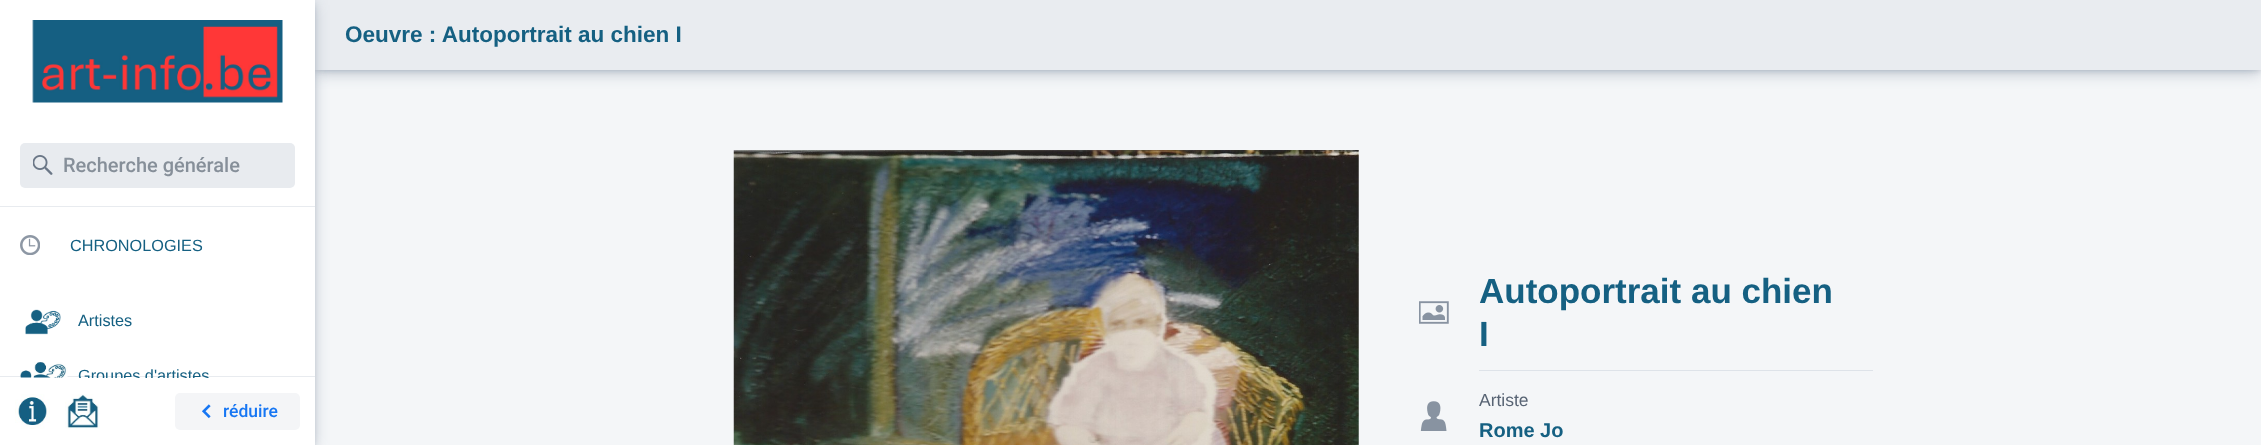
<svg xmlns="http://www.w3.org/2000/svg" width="2261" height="445">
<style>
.a{font:500 20px Roboto;fill:#868f99}
.b{font:16.25px Liberation Sans;fill:#156082}
.c{font:500 17.5px Roboto;fill:#1676f3}
.d{font:bold 22.5px Liberation Sans;fill:#156082}
.e{font:bold 35px Liberation Sans;fill:#156082}
.f{font:17.5px Liberation Sans;fill:#586474}
.g{font:bold 20px Liberation Sans;fill:#156082}
</style>
<defs>
<clipPath id="clip1"><path d="M78 363h131v15H78z"/></clipPath>
</defs>
<rect width="100%" height="100%" fill="#f4f6f8"/>
<path fill="#1c345442" filter="blur(7.5px)" d="M316 5h1944v68H316z"/>
<path fill="#1c375a29" filter="blur(2.5px)" d="M316 4h1944v67H316z"/>
<path fill="#e9ecf0" d="M315 0h1946v70H315z"/>
<path fill="#1c345442" filter="blur(7.5px)" d="M1 5h313v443H1z"/>
<path fill="#1c375a29" filter="blur(2.5px)" d="M1 4h313v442H1z"/>
<path fill="#fff" d="M0 0h315v445H0z"/>
<image href="1.png" x="32" y="20" width="251" height="83"/>
<path fill="#e8ebef" d="M0 206h315v1H0z"/>
<rect fill="#e8ebef" x="20" y="143" width="275" height="45" rx="5"/>
<image href="2.png" x="33" y="155" width="20" height="20"/>
<path fill="#e8ebef" d="M0 376h315v1H0z"/>
<image href="3.png" x="20" y="235" width="20" height="20"/>
<image href="4.png" x="25" y="309" width="36" height="26"/>
<image href="5.png" x="20" y="362" width="48" height="16"/>
<image href="6.png" x="15" y="394" width="35" height="35"/>
<image href="7.png" x="65" y="394" width="35" height="35"/>
<rect fill="#f4f5f7" x="175" y="393" width="125" height="37" rx="5"/>
<image href="8.png" x="202" y="404" width="9" height="15"/>
<image href="9.png" x="733" y="150" width="626" height="295"/>
<image href="10.png" x="1419" y="301" width="30" height="23"/>
<path fill="#dee3e9" d="M1479 370h394v1H1479z"/>
<image href="11.png" x="1420" y="401" width="27" height="30"/>
<text class="a" x="63" y="172">Recherche générale</text>
<text class="b" x="70" y="251">CHRONOLOGIES</text>
<text class="b" x="78" y="326">Artistes</text>
<g clip-path="url(#clip1)">
<text class="b" x="78" y="381">Groupes d'artistes</text>
</g>
<text class="c" x="223" y="417">réduire</text>
<text class="d" x="345" y="42">Oeuvre : Autoportrait au chien I</text>
<text class="e" x="1479" y="303">Autoportrait au chien</text>
<text class="e" x="1479" y="346">I</text>
<text class="f" x="1479" y="406">Artiste</text>
<text class="g" x="1479" y="437">Rome Jo</text>
</svg>
